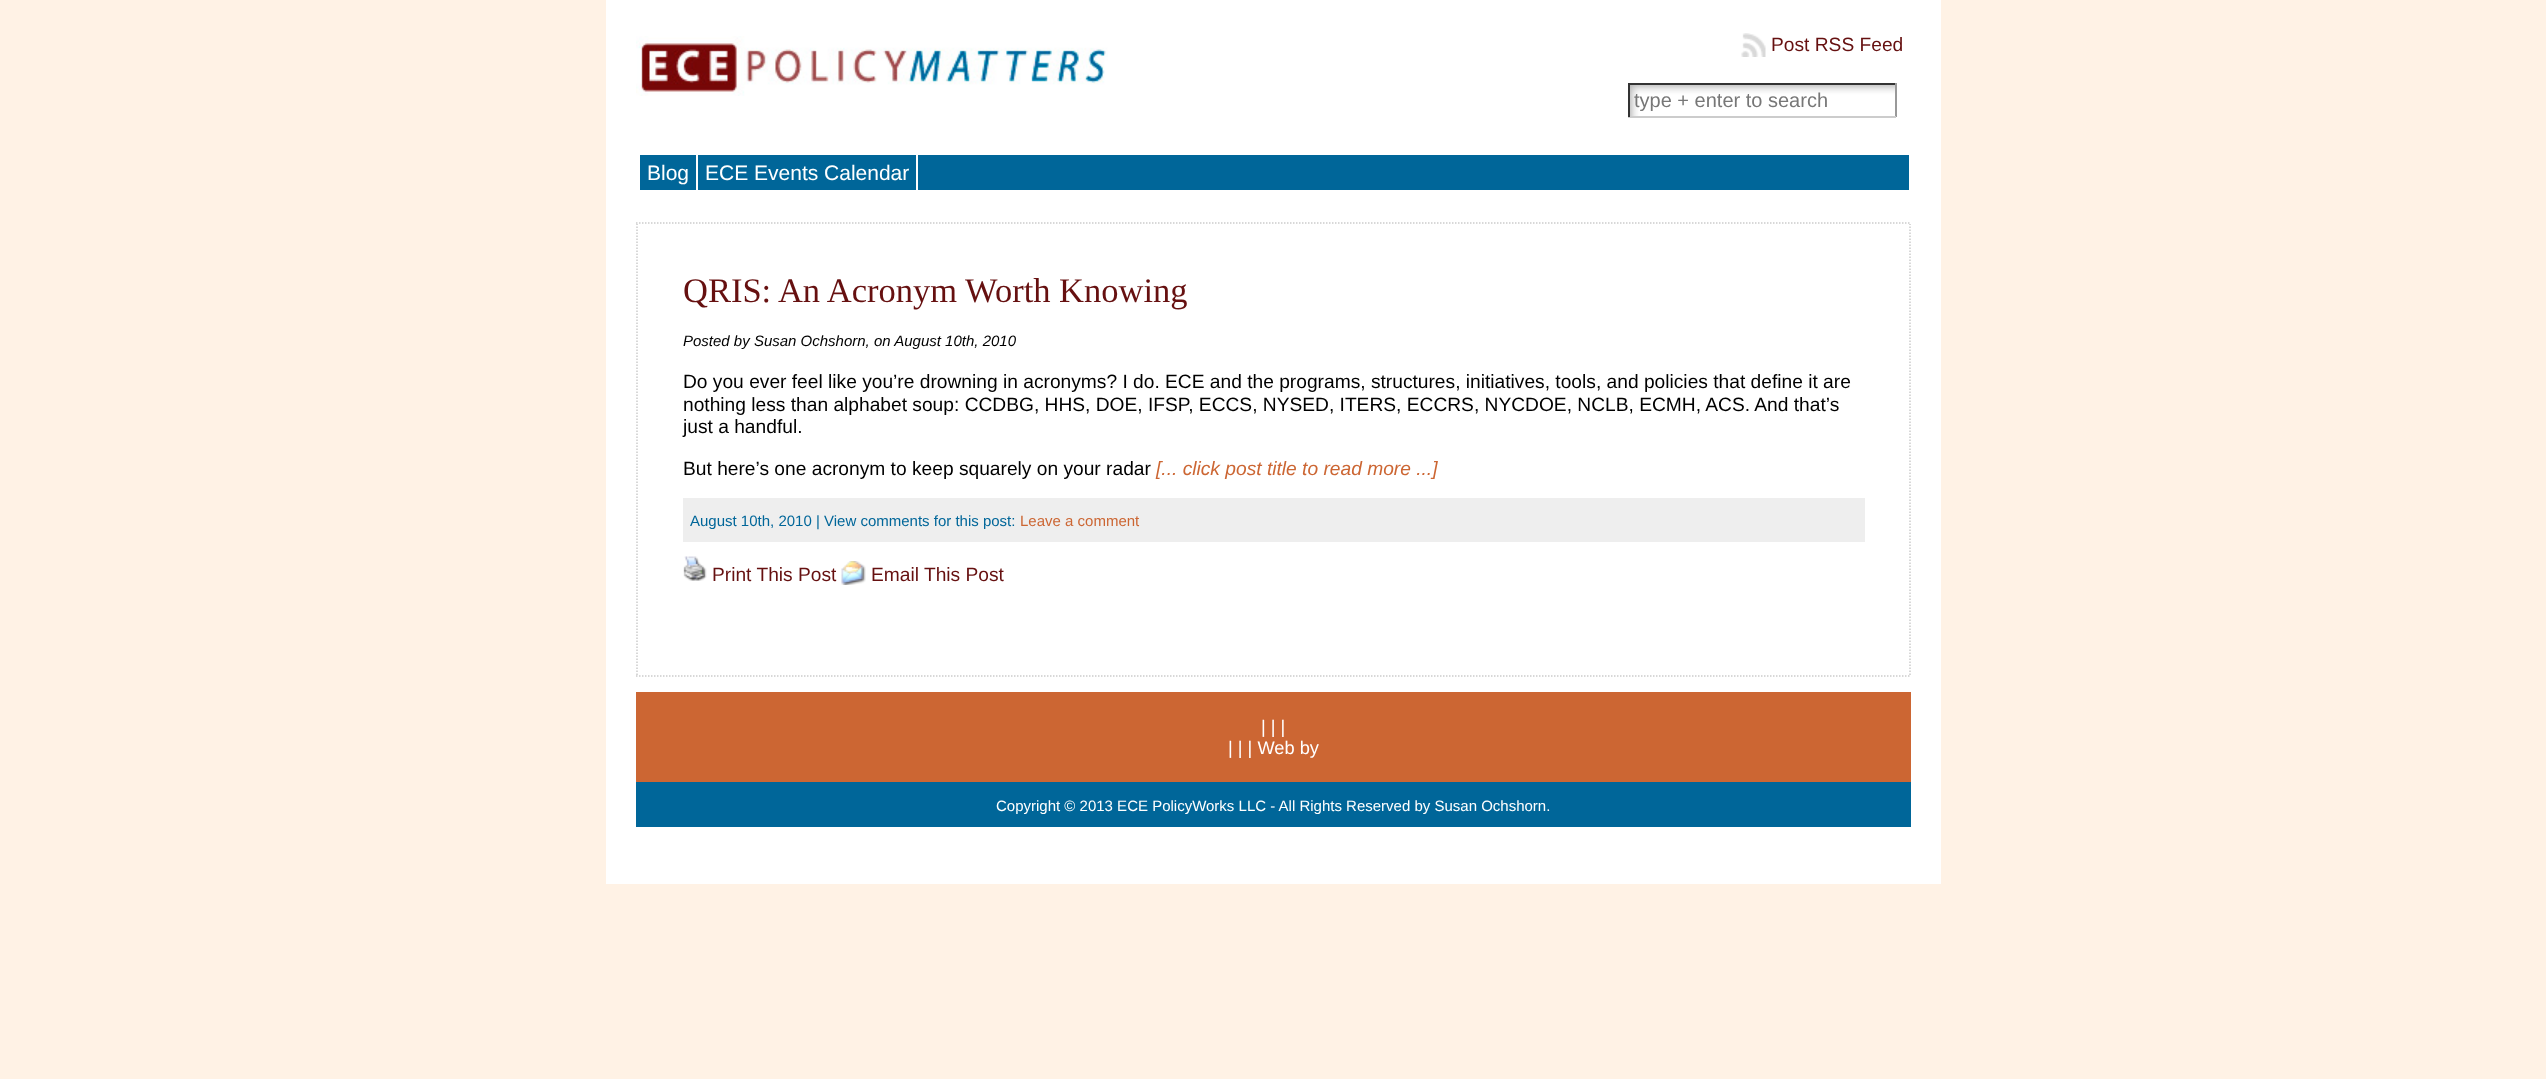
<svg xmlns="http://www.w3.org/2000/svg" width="2546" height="1079">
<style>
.a{font:19.2px Liberation Sans;fill:#661010}
.b{font:20px Liberation Sans;fill:#777}
.c{font:21px Liberation Sans;fill:#fff}
.d{font:34.5px Liberation Serif;fill:#661010}
.e{font:italic 15px Liberation Sans;fill:#000}
.f{font:19.2px Liberation Sans;fill:#000}
.g{font:italic 19.2px Liberation Sans;fill:#c63}
.h{font:15px Liberation Sans;fill:#069}
.i{font:15px Liberation Sans;fill:#c63}
.j{font:18.25px Liberation Sans;fill:#fff}
.k{font:15px Liberation Sans;fill:#fff}
</style>
<defs>
<clipPath id="clip1"><path d="M1634 89h256v22H1634z"/></clipPath>
</defs>
<rect width="100%" height="100%" fill="#fff2e5"/>
<path fill="#fff" d="M606 0h1335v884H606z"/>
<image href="1.png" x="636" y="36" width="472" height="60"/>
<image href="2.png" x="1741" y="33" width="25" height="24"/>
<image href="3.png" x="1630" y="85" width="265" height="31"/>
<path fill="#333" d="M1628 83h268v2H1628z"/>
<path fill="#999" d="M1895 83h2v34H1895z"/>
<path fill="#ccc" d="M1628 116h268v2H1628z"/>
<path fill="#333" d="M1628 83h2v34H1628z"/>
<path fill="#069" d="M918 155h991v35H918z"/>
<path fill="#069" d="M640 155h56v35H640z"/>
<path fill="#069" d="M698 155h218v35H698z"/>
<path fill="none" stroke="#ccc" stroke-width="1.5" stroke-dasharray="1.5 1.5" d="M1910 223.5v451.5"/>
<path fill="none" stroke="#ccc" stroke-width="1.5" stroke-dasharray="1.5 1.5" d="M637 223.5v451.5"/>
<path fill="#fff" d="M636 223h1275v1H636z"/>
<path fill="none" stroke="#ccc" stroke-width="1.5" stroke-dasharray="1.5 1.5" d="M636 223h1275"/>
<path fill="#eee" d="M683 498h1182v44H683z"/>
<image href="4.png" x="683" y="556" width="24" height="25"/>
<image href="5.png" x="841" y="561" width="25" height="24"/>
<path fill="none" stroke="#ccc" stroke-width="1.5" stroke-dasharray="1.5 1.5" d="M636 676h1275"/>
<path fill="#c63" d="M636 692h1275v90H636z"/>
<path fill="#069" d="M636 782h1275v45H636z"/>
<text class="a" x="1771" y="51">Post RSS Feed</text>
<g clip-path="url(#clip1)">
<text class="b" x="1634" y="107">type + enter to search</text>
</g>
<text class="c" x="647" y="180">Blog</text>
<text class="c" x="705" y="180">ECE Events Calendar</text>
<text class="d" x="683" y="302">QRIS: An Acronym Worth Knowing</text>
<text class="e" x="683" y="346">Posted by Susan Ochshorn, on August 10th, 2010</text>
<text class="f" x="683" y="388">Do you ever feel like you’re drowning in acronyms? I do. ECE and the programs, structures, initiatives, tools, and policies that define it are</text>
<text class="f" x="683" y="411">nothing less than alphabet soup: CCDBG, HHS, DOE, IFSP, ECCS, NYSED, ITERS, ECCRS, NYCDOE, NCLB, ECMH, ACS. And that’s</text>
<text class="f" x="683" y="433">just a handful.</text>
<text class="f" x="683" y="475">But here’s one acronym to keep squarely on your radar</text>
<text class="g" x="1156" y="475">[... click post title to read more ...]</text>
<text class="h" x="690" y="526">August 10th, 2010 | View comments for this post:</text>
<text class="i" x="1020" y="526">Leave a comment</text>
<text class="a" x="712" y="581">Print This Post</text>
<text class="a" x="871" y="581">Email This Post</text>
<text class="j" x="1261" y="733">| | |</text>
<text class="j" x="1228" y="754">| | | Web by</text>
<text class="k" x="996" y="811">Copyright © 2013 ECE PolicyWorks LLC - All Rights Reserved by Susan Ochshorn.</text>
</svg>
